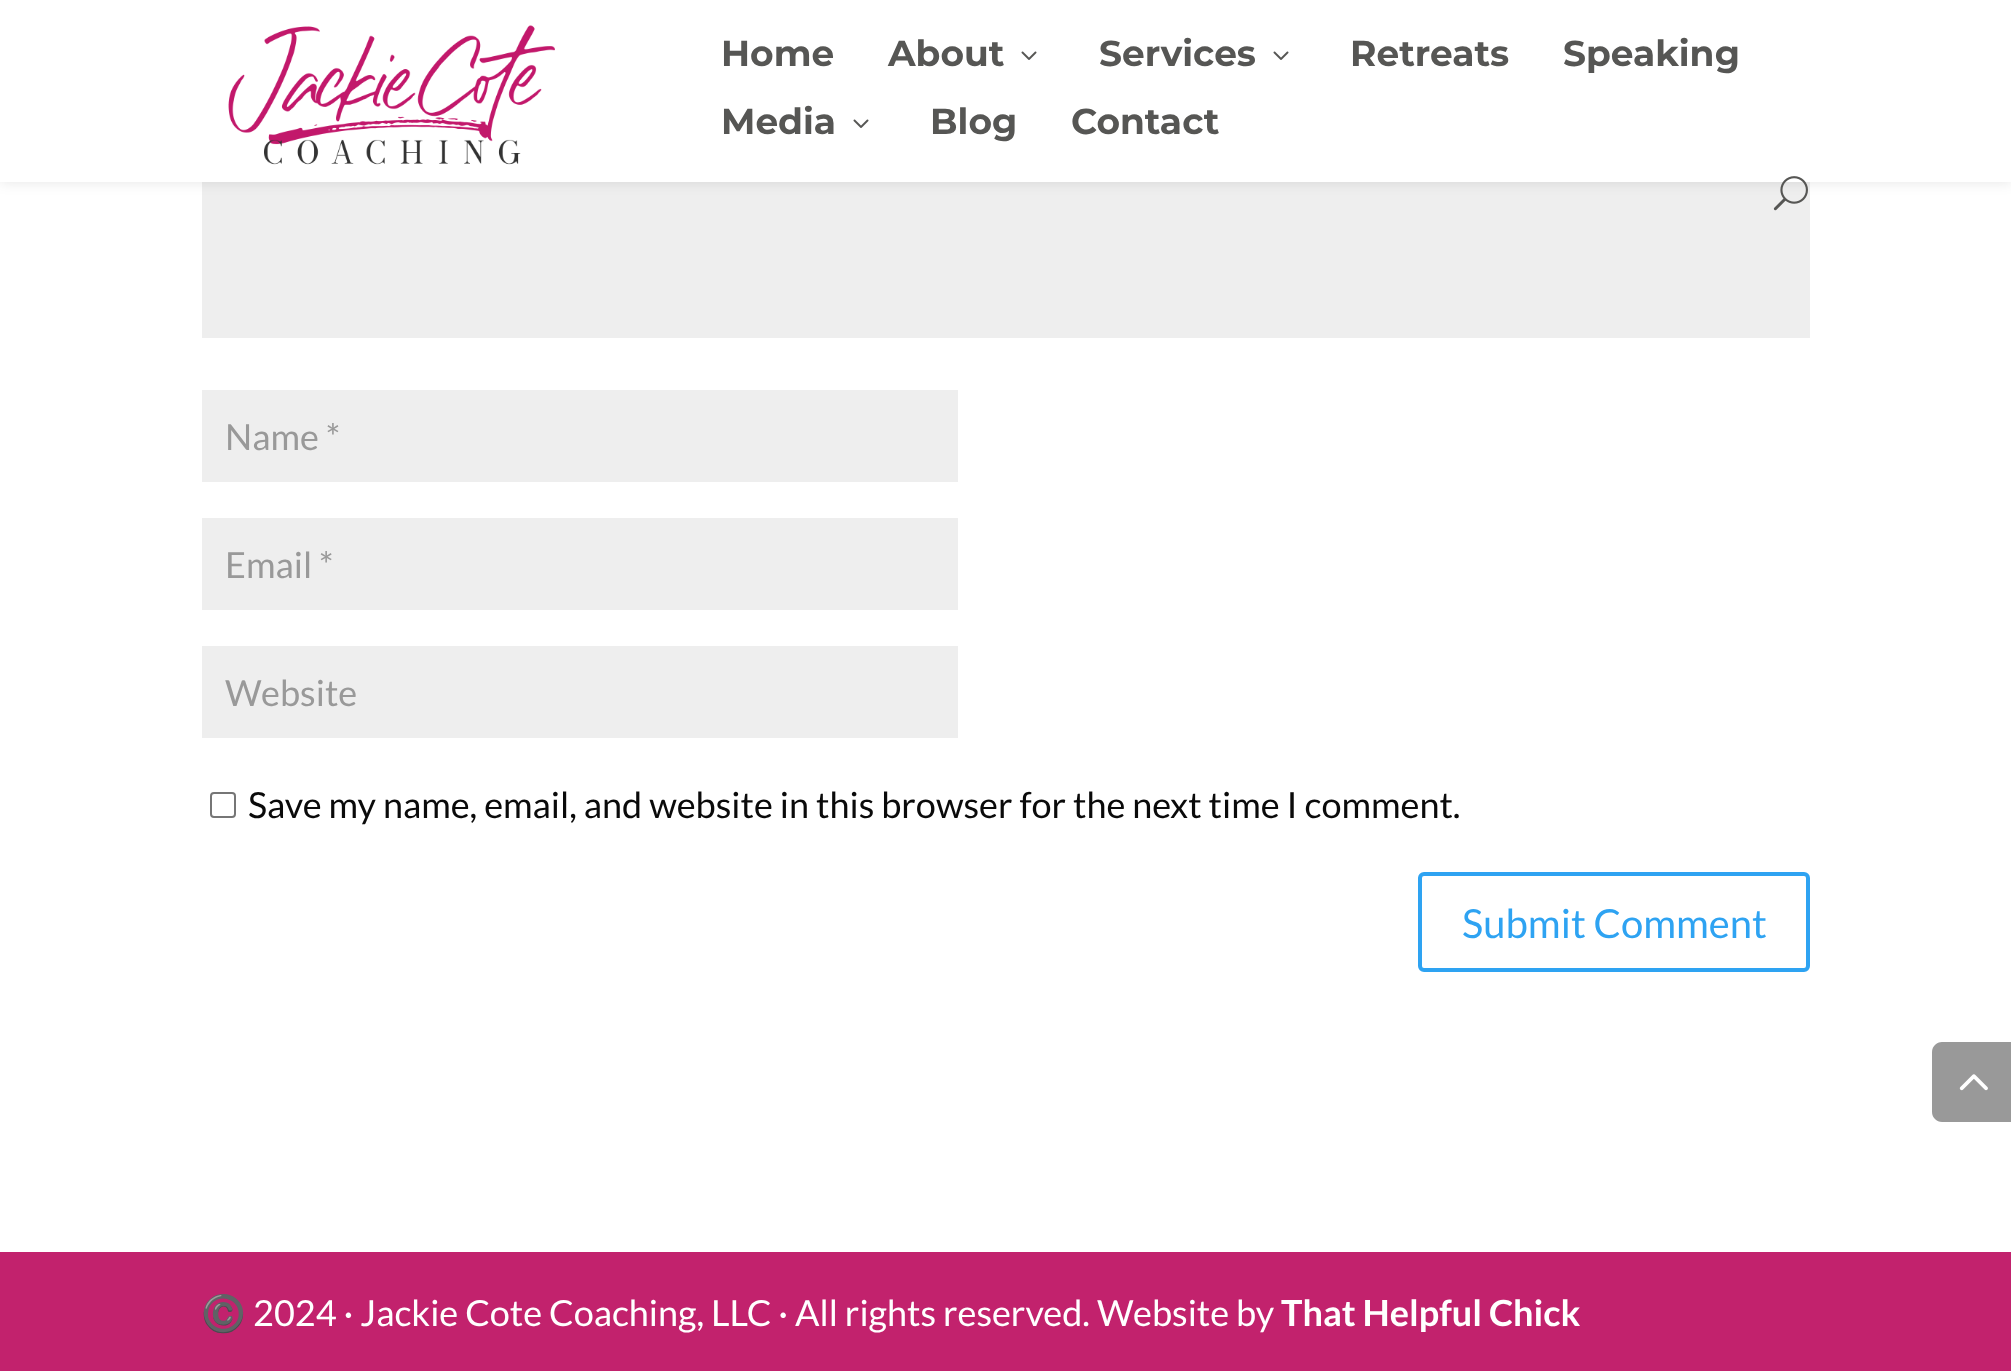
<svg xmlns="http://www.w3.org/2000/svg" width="2011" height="1371">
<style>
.a{font:bold 36px Montserrat;fill:#565654}
.b{font:36px Lato;fill:#999}
.c{font:36px Lato;fill:#0a0a0a}
.d{font:40px Lato;fill:#2ea3f2}
.e{font:36px Noto Color Emoji;fill:#fff}
.f{font:36px Lato;fill:#fff}
.g{font:bold 36px Lato;fill:#fff}
</style>
<rect width="100%" height="100%" fill="#fff"/>
<path fill="#eee" d="M202 182h1608v156H202z"/>
<path fill="#0000001a" filter="blur(7px)" d="M0 0h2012v182H0z"/>
<path fill="#fff" d="M0 0h2011v182H0z"/>
<image href="1.png" x="228" y="25" width="327" height="140"/>
<image href="2.png" x="1021" y="51" width="16" height="9"/>
<image href="2.png" x="1273" y="51" width="16" height="9"/>
<image href="2.png" x="853" y="119" width="16" height="9"/>
<image href="3.png" x="1773" y="176" width="35" height="35"/>
<path fill="#eee" d="M202 390h756v92H202z"/>
<path fill="#eee" d="M202 518h756v92H202z"/>
<path fill="#eee" d="M202 646h756v92H202z"/>
<rect fill="none" stroke="#767676" stroke-width="2" x="211" y="793" width="24" height="24" rx="3"/>
<rect fill="none" stroke="#2ea3f2" stroke-width="4" x="1420" y="874" width="388" height="96" rx="4"/>
<path fill="#999" d="M1942 1042h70v80h-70c-5.5 0-10-4.5-10-10v-60c0-5.5 4.5-10 10-10z"/>
<image href="4.png" x="1959" y="1074" width="29" height="17"/>
<path fill="#c2226d" d="M0 1252h2011v119H0z"/>
<text class="a" x="721" y="66">Home</text>
<text class="a" x="888" y="66">About</text>
<text class="a" x="1099" y="66">Services</text>
<text class="a" x="1350" y="66">Retreats</text>
<text class="a" x="1563" y="66">Speaking</text>
<text class="a" x="721" y="134">Media</text>
<text class="a" x="930" y="134">Blog</text>
<text class="a" x="1071" y="134">Contact</text>
<text class="b" x="225" y="450">Name *</text>
<text class="b" x="225" y="578">Email *</text>
<text class="b" x="225" y="706">Website</text>
<text class="c" x="248" y="818">Save my name, email, and website in this browser for the next time I comment.</text>
<text class="d" x="1462" y="938">Submit Comment</text>
<text class="e" x="201" y="1326">©️</text>
<text class="f" x="253" y="1326">2024 · Jackie Cote Coaching, LLC · All rights reserved. Website by</text>
<text class="g" x="1281" y="1326">That Helpful Chick</text>
</svg>
